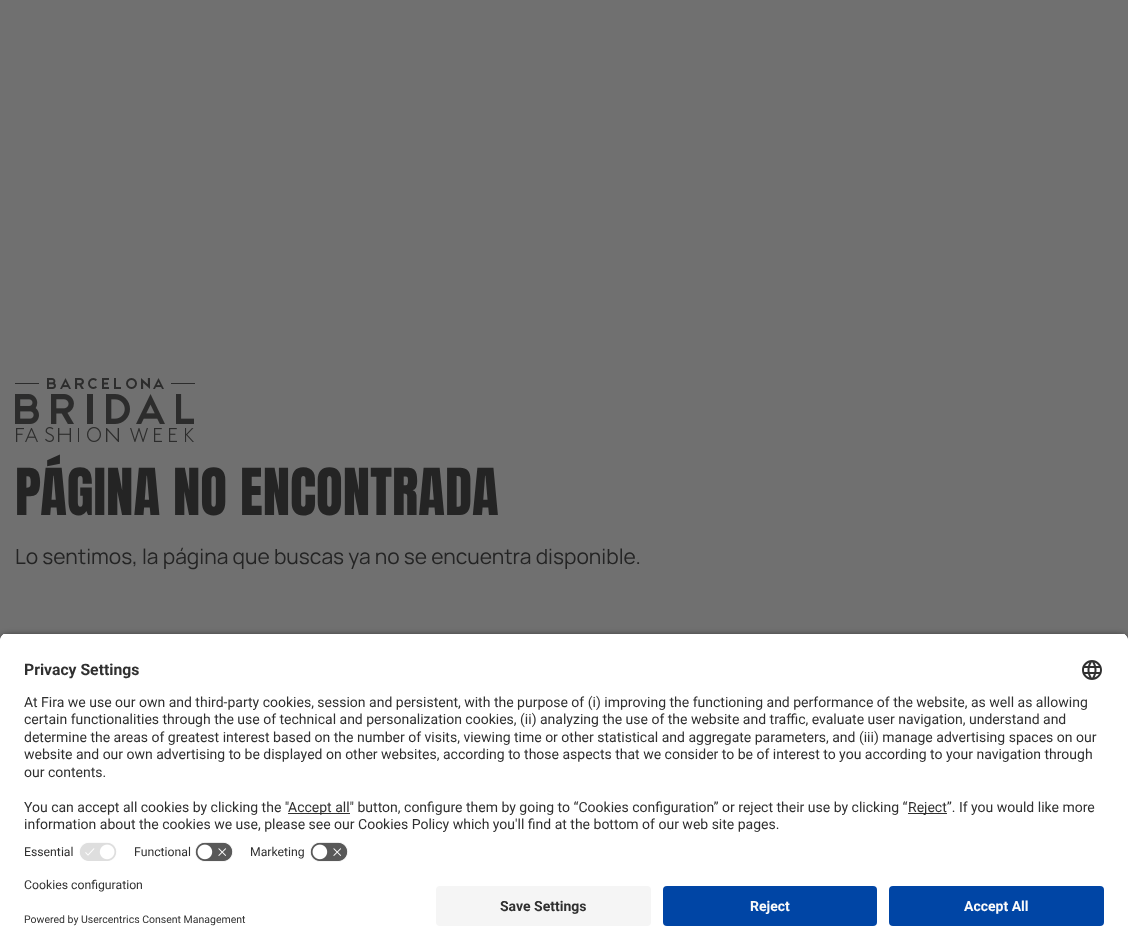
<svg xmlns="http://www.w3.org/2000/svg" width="1128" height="950">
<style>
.a{font:55px Anton;fill:#242424}
.b{font:21px Manrope;fill:#242424}
.c{font:bold 15.75px Roboto;fill:#303030}
.d{font:14px Roboto;fill:#303030}
.e{font:12.25px Roboto;fill:#303030}
.f{font:10.5px Roboto;fill:#303030}
.g{font:bold 14px Roboto;fill:#303030}
.h{font:bold 14px Roboto;fill:#fafafa}
</style>
<defs>
<clipPath id="clip1"><path d="M8 633h1112c4.5 0 8 3.5 8 8v237h-1128v-237c0-4.5 3.5-8 8-8z"/></clipPath>
</defs>
<rect width="100%" height="100%" fill="#707070"/>
<image href="1.png" x="15" y="378" width="180" height="64"/>
<rect fill="#000000cc" filter="blur(3.5px)" y="636" width="1128" height="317" rx="8"/>
<g clip-path="url(#clip1)">
<path fill="#fff" d="M0 634h1128v244H0z"/>
<path fill="#fff" d="M0 634h1128v204H0z"/>
</g>
<image href="2.png" x="1082" y="660" width="20" height="20"/>
<path fill="#303030" d="M288 813h62v1H288z"/>
<path fill="#303030" d="M908 813h39v1H908z"/>
<image href="3.png" x="79" y="842" width="38" height="19"/>
<image href="4.png" x="195" y="842" width="38" height="20"/>
<image href="4.png" x="310" y="842" width="38" height="20"/>
<path fill="#fff" d="M0 878h1128v72H0z"/>
<rect fill="#f5f5f5" x="436" y="886" width="215" height="40" rx="4"/>
<rect fill="#0045a5" x="663" y="886" width="214" height="40" rx="4"/>
<rect fill="#0045a5" x="889" y="886" width="215" height="40" rx="4"/>
<text class="a" x="15" y="515">PÁGINA NO ENCONTRADA</text>
<text class="b" x="15" y="564">Lo sentimos, la página que buscas ya no se encuentra disponible.</text>
<text class="c" x="24" y="675">Privacy Settings</text>
<text class="d" x="24" y="707">At Fira we use our own and third-party cookies, session and persistent, with the purpose of (i) improving the functioning and performance of the website, as well as allowing</text>
<text class="d" x="24" y="724">certain functionalities through the use of technical and personalization cookies, (ii) analyzing the use of the website and traffic, evaluate user navigation, understand and</text>
<text class="d" x="24" y="742">determine the areas of greatest interest based on the number of visits, viewing time or other statistical and aggregate parameters, and (iii) manage advertising spaces on our</text>
<text class="d" x="24" y="759">website and our own advertising to be displayed on other websites, according to those aspects that we consider to be of interest to you according to your navigation through</text>
<text class="d" x="24" y="777">our contents.</text>
<text class="d" x="24" y="812">You can accept all cookies by clicking the "</text>
<text class="d" x="288" y="812">Accept all" button, configure them by going to “Cookies configuration” or reject their use by clicking “</text>
<text class="d" x="908" y="812">Reject”. If you would like more</text>
<text class="d" x="24" y="829">information about the cookies we use, please see our Cookies Policy which you'll find at the bottom of our web site pages.</text>
<text class="e" x="24" y="856">Essential</text>
<text class="e" x="134" y="856">Functional</text>
<text class="e" x="250" y="856">Marketing</text>
<text class="e" x="24" y="889">Cookies configuration</text>
<text class="f" x="24" y="923">Powered by Usercentrics Consent Management</text>
<text class="g" x="500" y="911">Save Settings</text>
<text class="h" x="750" y="911">Reject</text>
<text class="h" x="964" y="911">Accept All</text>
</svg>
